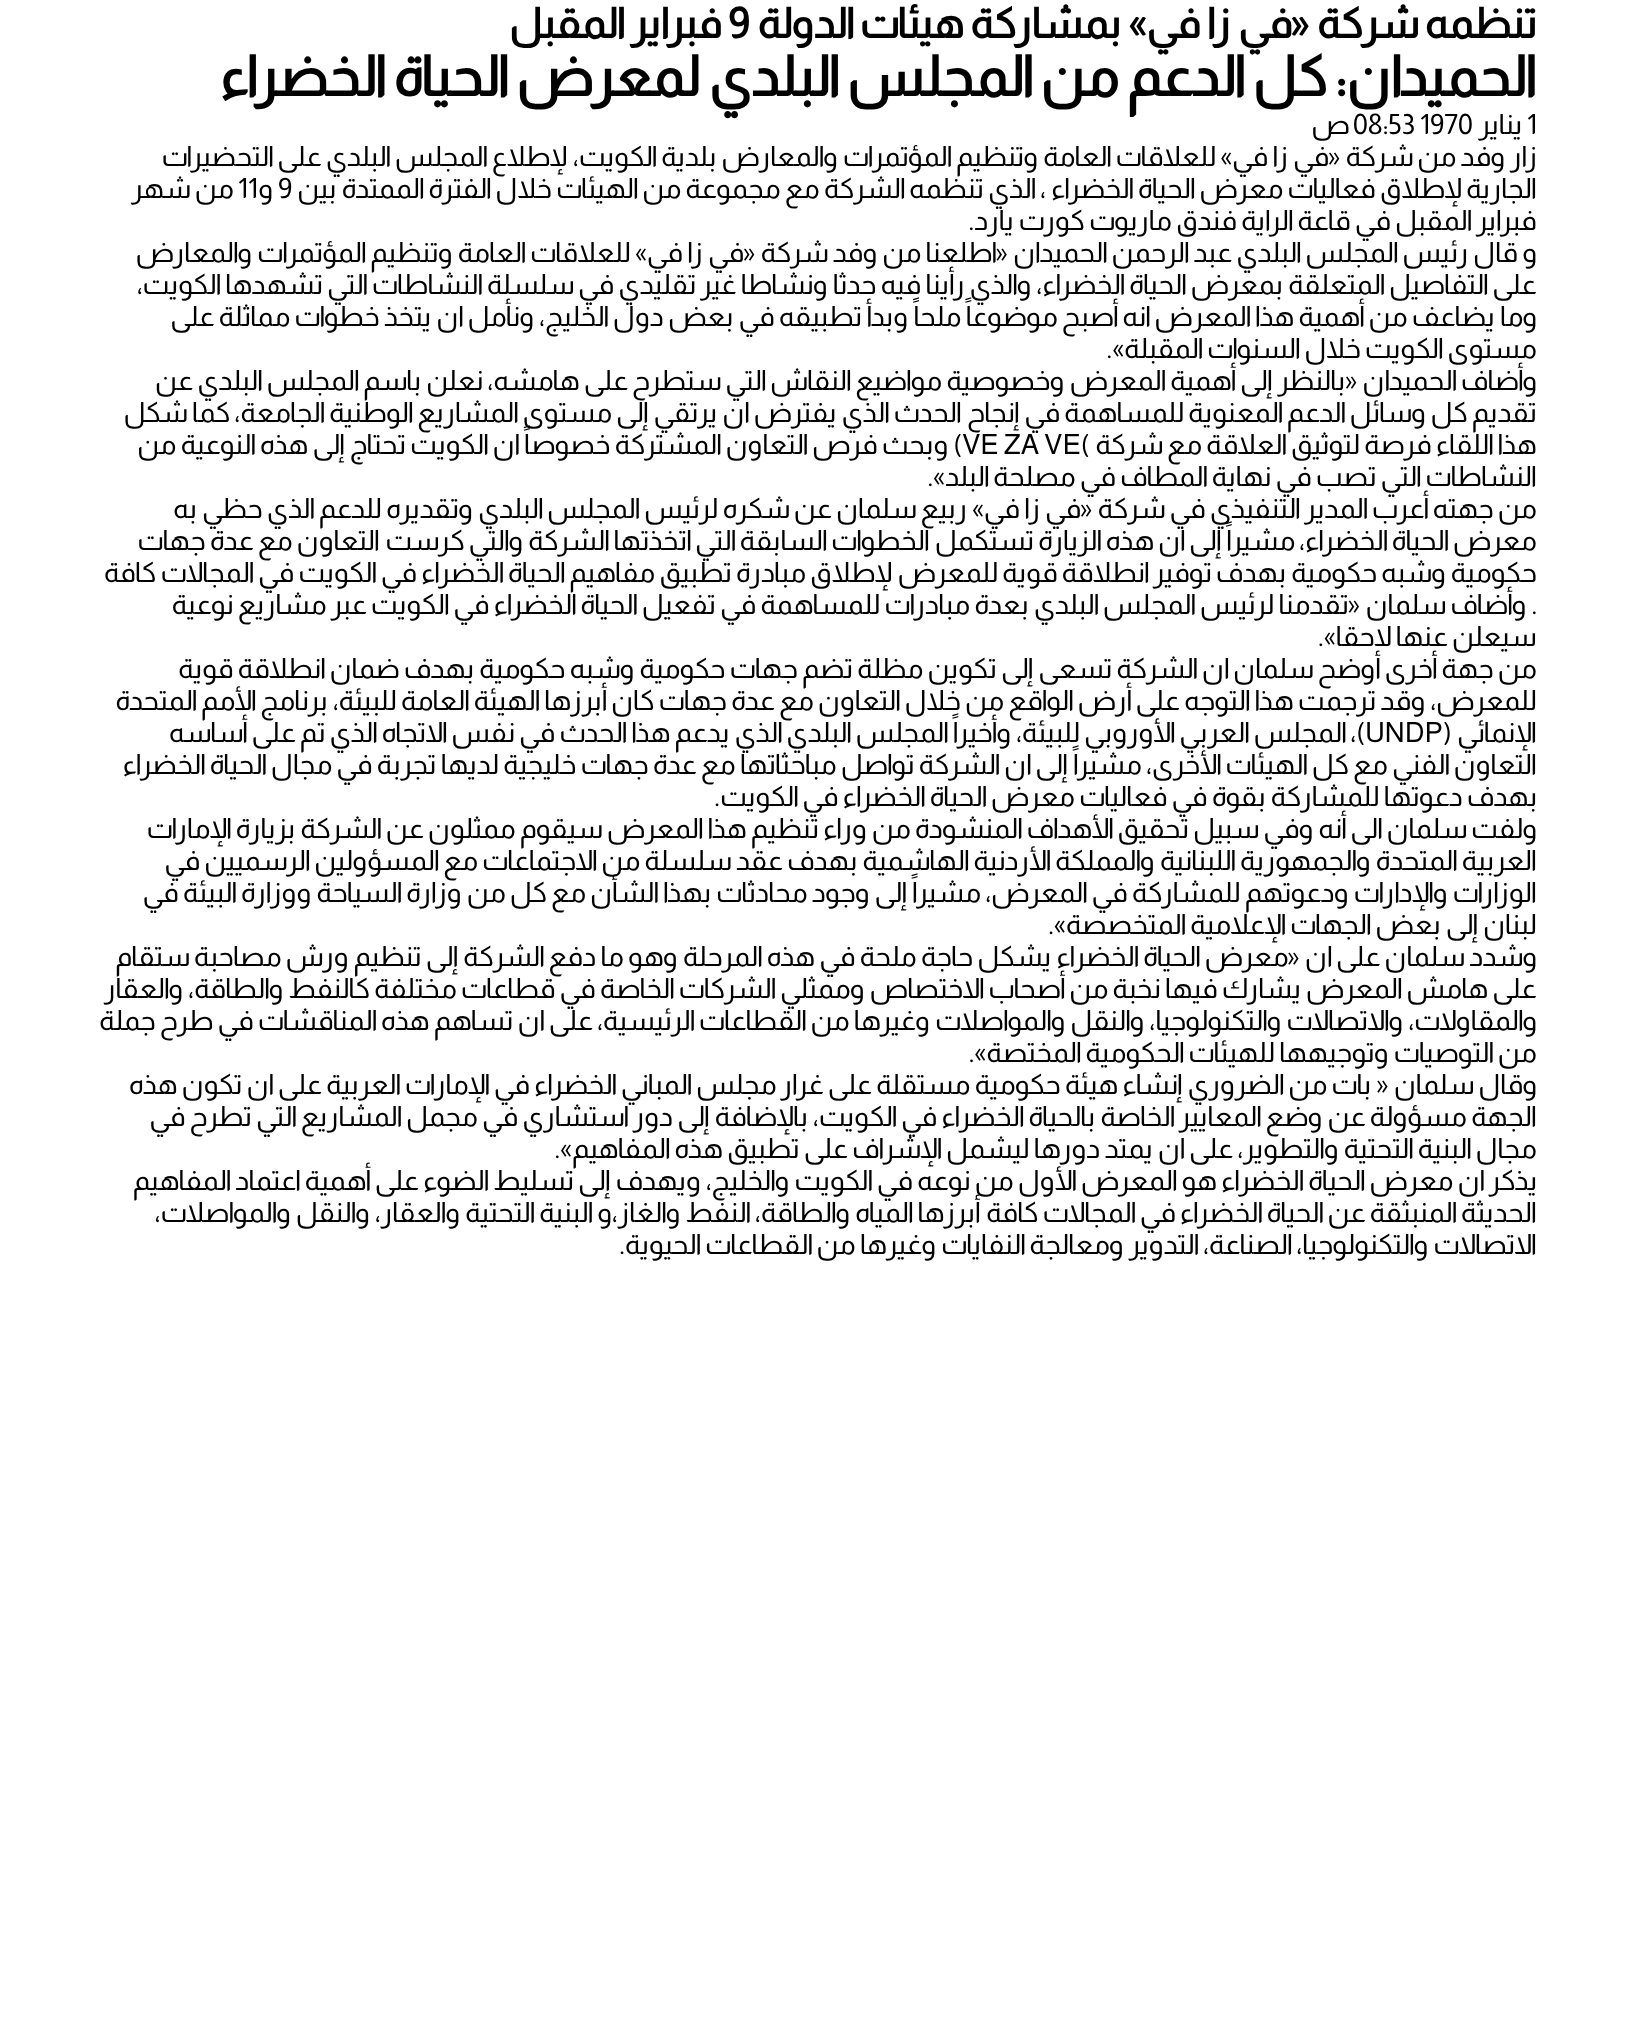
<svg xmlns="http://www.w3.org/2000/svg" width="1634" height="2025">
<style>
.a{font:bold 42px Almarai;direction:rtl;fill:#000}
.b{font:bold 42px Almarai;fill:#000}
.c{font:bold 56px Almarai;direction:rtl;fill:#000}
.d{font:28px Almarai;fill:#000}
.e{font:28px Almarai;direction:rtl;fill:#000}
</style>
<rect width="100%" height="100%" fill="#fff"/>
<text class="a" x="1537" y="38">تنظمه شركة «في زا في» بمشاركة هيئات الدولة</text>
<text class="b" x="728" y="38">9</text>
<text class="a" x="722" y="38">فبراير المقبل</text>
<text class="c" x="1537" y="96">الحميدان: كل الدعم من المجلس البلدي لمعرض الحياة الخضراء</text>
<text class="d" x="1527" y="134">1</text>
<text class="e" x="1522" y="134">يناير</text>
<text class="d" x="1353" y="134">08:53 1970</text>
<text class="e" x="1350" y="134">ص</text>
<text class="e" x="1537" y="166" word-spacing="-0.1">زار وفد من شركة «في زا في» للعلاقات العامة وتنظيم المؤتمرات والمعارض بلدية الكويت،</text>
<text class="e" x="568" y="166">لإطلاع المجلس البلدي على التحضيرات</text>
<text class="e" x="1537" y="198">الجارية لإطلاق فعاليات معرض الحياة الخضراء ، الذي تنظمه الشركة مع مجموعة من الهيئات خلال الفترة الممتدة بين</text>
<text class="d" x="278" y="198">9</text>
<text class="e" x="273" y="198">و</text>
<text class="d" x="238" y="198">11</text>
<text class="e" x="234" y="198">من شهر</text>
<text class="e" x="1537" y="230">فبراير المقبل في قاعة الراية فندق ماريوت كورت يارد.</text>
<text class="e" x="1537" y="262">و قال رئيس المجلس البلدي عبد الرحمن الحميدان «اطلعنا من وفد شركة «في زا في»</text>
<text class="e" x="631" y="262">للعلاقات العامة وتنظيم المؤتمرات والمعارض</text>
<text class="e" x="1537" y="294">على التفاصيل المتعلقة بمعرض الحياة الخضراء، والذي رأينا فيه حدثا ونشاطا غير تقليدي في سلسلة النشاطات التي تشهدها الكويت،</text>
<text class="e" x="1537" y="326">وما يضاعف من أهمية هذا المعرض انه أصبح موضوعاً ملحاً وبدأ تطبيقه في بعض دول الخليج، ونأمل ان يتخذ خطوات مماثلة على</text>
<text class="e" x="1537" y="358">مستوى الكويت خلال السنوات المقبلة».</text>
<text class="e" x="1537" y="390">وأضاف الحميدان «بالنظر إلى أهمية المعرض وخصوصية مواضيع النقاش التي ستطرح على هامشه، نعلن باسم المجلس البلدي عن</text>
<text class="e" x="1537" y="422" word-spacing="-0.25">تقديم كل وسائل الدعم المعنوية للمساهمة في إنجاح</text>
<text class="e" x="962" y="422">الحدث الذي يفترض ان يرتقي إلى مستوى المشاريع الوطنية الجامعة، كما شكل</text>
<text class="e" x="1537" y="454">هذا اللقاء فرصة لتوثيق العلاقة مع شركة</text>
<text class="d" x="962" y="454">VE ZA VE(</text>
<text class="e" x="962" y="454">) وبحث فرص التعاون المشتركة خصوصاً ان الكويت تحتاج إلى هذه النوعية من</text>
<text class="e" x="1537" y="486">النشاطات التي تصب في نهاية المطاف في مصلحة البلد».</text>
<text class="e" x="1537" y="518">من جهته أعرب المدير التنفيذي في شركة «في زا في» ربيع سلمان عن شكره لرئيس المجلس البلدي وتقديره للدعم الذي حظي به</text>
<text class="e" x="1537" y="550" word-spacing="-0.25">معرض الحياة الخضراء، مشيراً إلى ان هذه الزيارة تستكمل</text>
<text class="e" x="930" y="550" word-spacing="-0.25">الخطوات السابقة التي اتخذتها الشركة والتي كرست</text>
<text class="e" x="380" y="550">التعاون مع عدة جهات</text>
<text class="e" x="1537" y="582" word-spacing="-0.25">حكومية وشبه حكومية بهدف توفير انطلاقة قوية للمعرض</text>
<text class="e" x="893" y="582">لإطلاق مبادرة تطبيق مفاهيم الحياة الخضراء في الكويت في المجالات كافة</text>
<text class="e" x="1537" y="614">. وأضاف سلمان</text>
<text class="e" x="1360" y="614">«تقدمنا لرئيس المجلس البلدي بعدة مبادرات للمساهمة في تفعيل الحياة الخضراء في الكويت عبر مشاريع نوعية</text>
<text class="e" x="1537" y="646">سيعلن عنها لاحقا».</text>
<text class="e" x="1537" y="678">من جهة أخرى أوضح سلمان ان الشركة تسعى إلى تكوين مظلة تضم جهات حكومية وشبه حكومية بهدف ضمان انطلاقة قوية</text>
<text class="e" x="1537" y="710">للمعرض، وقد ترجمت هذا التوجه على أرض الواقع من خلال التعاون مع عدة جهات كان أبرزها الهيئة العامة للبيئة، برنامج الأمم المتحدة</text>
<text class="e" x="1537" y="742">الإنمائي (</text>
<text class="d" x="1365" y="742">UNDP</text>
<text class="e" x="1365" y="742">)، المجلس العربي الأوروبي للبيئة، وأخيراً المجلس البلدي الذي يدعم هذا الحدث في نفس الاتجاه الذي تم على أساسه</text>
<text class="e" x="1537" y="774">التعاون الفني مع كل الهيئات الأخرى، مشيراً إلى ان الشركة تواصل مباحثاتها مع عدة جهات خليجية لديها تجربة في مجال الحياة الخضراء</text>
<text class="e" x="1537" y="806">بهدف دعوتها للمشاركة بقوة في فعاليات معرض الحياة الخضراء في الكويت.</text>
<text class="e" x="1537" y="838">ولفت سلمان الى أنه وفي سبيل تحقيق الأهداف المنشودة من وراء تنظيم هذا المعرض سيقوم ممثلون عن الشركة بزيارة الإمارات</text>
<text class="e" x="1537" y="870">العربية المتحدة والجمهورية اللبنانية والمملكة الأردنية الهاشمية بهدف عقد سلسلة من الاجتماعات مع المسؤولين الرسميين في</text>
<text class="e" x="1537" y="902">الوزارات والإدارات ودعوتهم للمشاركة في المعرض، مشيراً إلى وجود محادثات بهذا الشأن مع كل من وزارة السياحة ووزارة البيئة في</text>
<text class="e" x="1537" y="934">لبنان إلى بعض الجهات الإعلامية المتخصصة».</text>
<text class="e" x="1537" y="966">وشدد سلمان على ان «معرض الحياة الخضراء يشكل حاجة ملحة في هذه المرحلة وهو ما دفع الشركة إلى تنظيم ورش مصاحبة ستقام</text>
<text class="e" x="1537" y="998">على هامش المعرض يشارك فيها نخبة من أصحاب الاختصاص وممثلي الشركات الخاصة في قطاعات مختلفة كالنفط والطاقة،</text>
<text class="e" x="183" y="998">والعقار</text>
<text class="e" x="1537" y="1030">والمقاولات، والاتصالات والتكنولوجيا، والنقل والمواصلات وغيرها من القطاعات الرئيسية، على ان تساهم هذه المناقشات في طرح جملة</text>
<text class="e" x="1537" y="1062">من التوصيات وتوجيهها للهيئات الحكومية المختصة».</text>
<text class="e" x="1537" y="1094">وقال سلمان « بات من الضروري إنشاء هيئة حكومية مستقلة على غرار مجلس المباني الخضراء في الإمارات العربية على ان تكون هذه</text>
<text class="e" x="1537" y="1126">الجهة مسؤولة عن وضع المعايير الخاصة بالحياة الخضراء في الكويت، بالإضافة إلى دور استشاري في مجمل المشاريع التي تطرح في</text>
<text class="e" x="1537" y="1158">مجال البنية التحتية والتطوير، على ان يمتد دورها ليشمل الإشراف على تطبيق هذه المفاهيم».</text>
<text class="e" x="1537" y="1190">يذكر ان معرض الحياة الخضراء هو المعرض الأول من نوعه في الكويت والخليج، ويهدف إلى تسليط الضوء على أهمية اعتماد المفاهيم</text>
<text class="e" x="1537" y="1222" word-spacing="-0.25">الحديثة المنبثقة عن الحياة الخضراء في المجالات كافة</text>
<text class="e" x="981" y="1222">أبرزها المياه والطاقة، النفط والغاز،و البنية التحتية والعقار، والنقل والمواصلات،</text>
<text class="e" x="1537" y="1254">الاتصالات والتكنولوجيا، الصناعة، التدوير ومعالجة النفايات وغيرها من القطاعات الحيوية.</text>
</svg>
